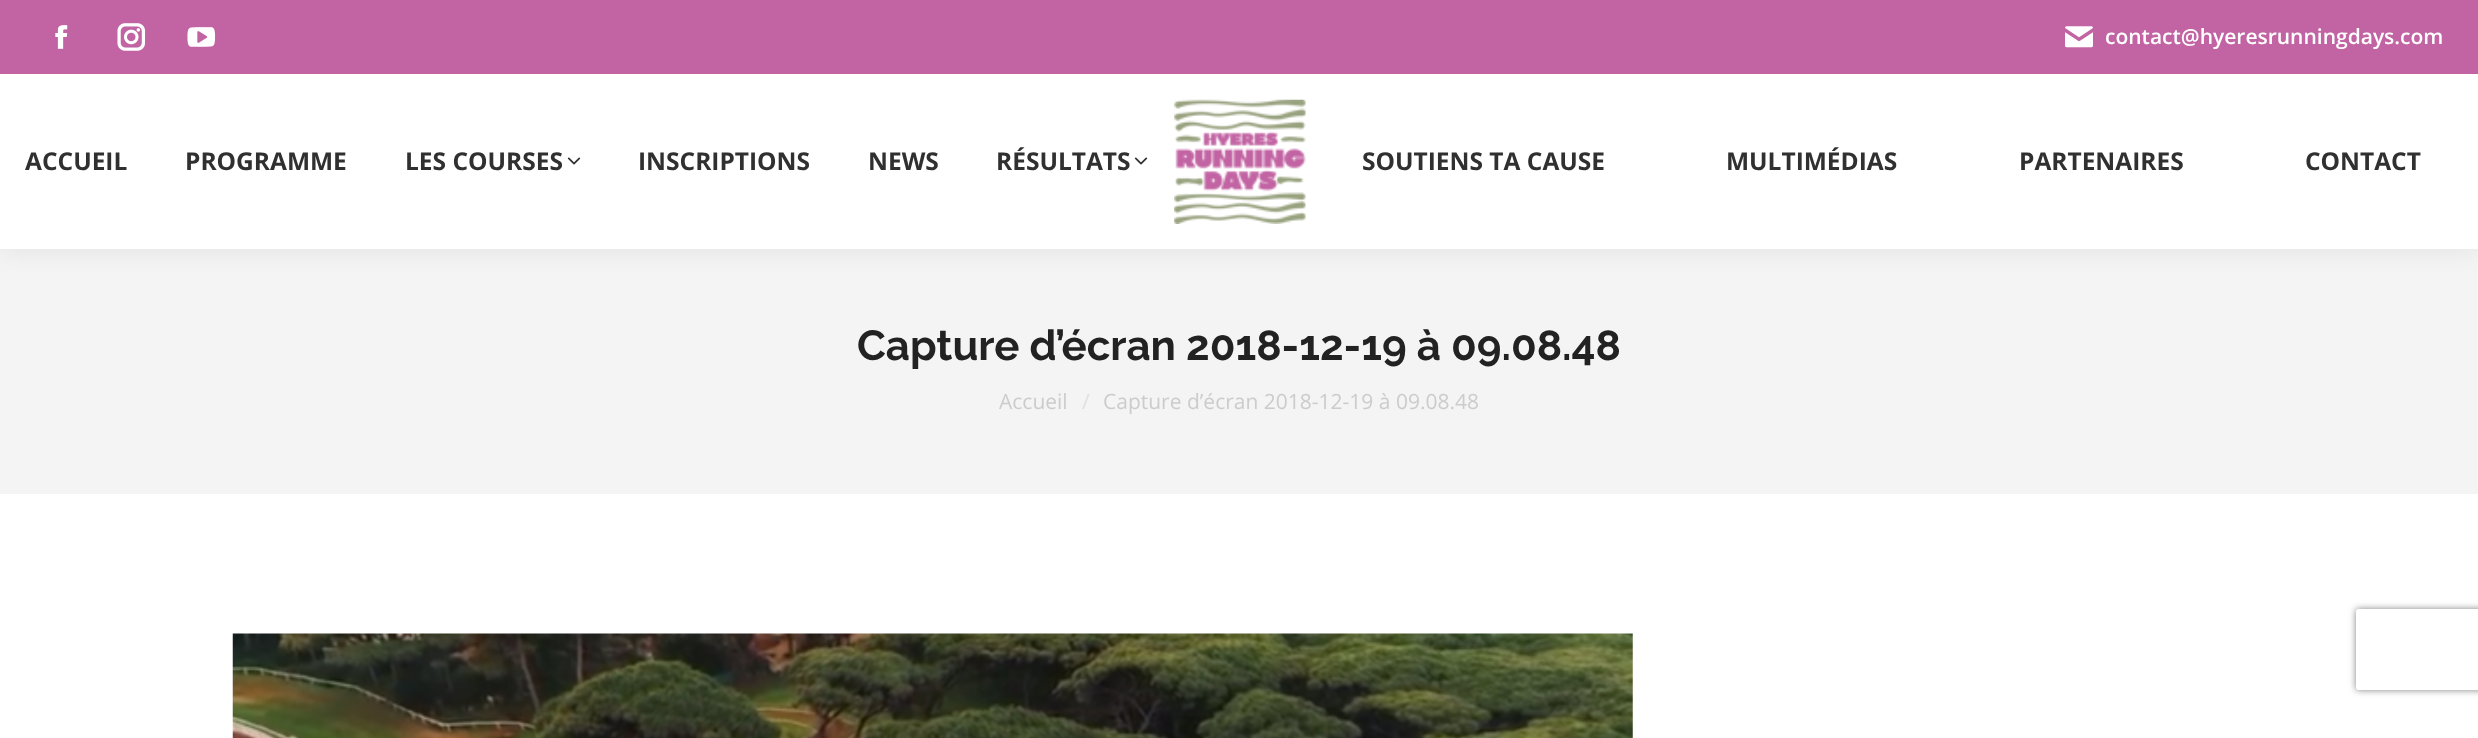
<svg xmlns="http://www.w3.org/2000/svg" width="2478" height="738">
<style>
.a{font:600 21px Open Sans;fill:#fff}
.b{font:bold 24.5px Open Sans;fill:#303030}
.c{font:bold 42px Raleway;fill:#222}
.d{font:21px Open Sans;fill:#ccc}
.e{font:21px Open Sans;fill:#e0e0e0}
</style>
<defs>
<clipPath id="clip1"><path d="M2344 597h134v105h-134zm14.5 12h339c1.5 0 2.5 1 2.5 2.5v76c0 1.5-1 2.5-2.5 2.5h-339c-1.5 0-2.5-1-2.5-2.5v-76c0-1.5 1-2.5 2.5-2.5z" clip-rule="evenodd"/></clipPath>
</defs>
<rect width="100%" height="100%" fill="#fff"/>
<path fill="#f4f4f4" d="M0 249h2478v245H0z"/>
<path fill="#00000012" filter="blur(13px)" d="M-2 -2h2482v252H-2z"/>
<path fill="#fff" d="M0 74h2478v175H0z"/>
<path fill="#c264a3" d="M0 0h2478v74H0z"/>
<image href="1.png" x="55" y="25" width="13" height="24"/>
<image href="2.png" x="117" y="23" width="29" height="28"/>
<image href="3.png" x="187" y="27" width="29" height="20"/>
<image href="4.png" x="2065" y="26" width="28" height="22"/>
<image href="5.png" x="567" y="157" width="14" height="8"/>
<image href="5.png" x="1134" y="157" width="14" height="8"/>
<image href="6.png" x="1174" y="99" width="132" height="125"/>
<image href="7.png" x="232" y="633" width="1401" height="105"/>
<g clip-path="url(#clip1)">
<rect fill="#808080" filter="blur(3.5px)" x="2356" y="609" width="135" height="81" rx="2.5"/>
</g>
<text class="a" x="2105" y="44">contact@hyeresrunningdays.com</text>
<text class="b" x="25" y="170">ACCUEIL</text>
<text class="b" x="185" y="170">PROGRAMME</text>
<text class="b" x="405" y="170">LES COURSES</text>
<text class="b" x="638" y="170">INSCRIPTIONS</text>
<text class="b" x="868" y="170">NEWS</text>
<text class="b" x="996" y="170">RÉSULTATS</text>
<text class="b" x="1362" y="170">SOUTIENS TA CAUSE</text>
<text class="b" x="1726" y="170">MULTIMÉDIAS</text>
<text class="b" x="2019" y="170">PARTENAIRES</text>
<text class="b" x="2305" y="170">CONTACT</text>
<text class="c" x="857" y="360">Capture d’écran 2018-12-19 à 09.08.48</text>
<text class="d" x="999" y="409">Accueil</text>
<text class="e" x="1082" y="409">/</text>
<text class="d" x="1103" y="409">Capture d’écran 2018-12-19 à 09.08.48</text>
</svg>
